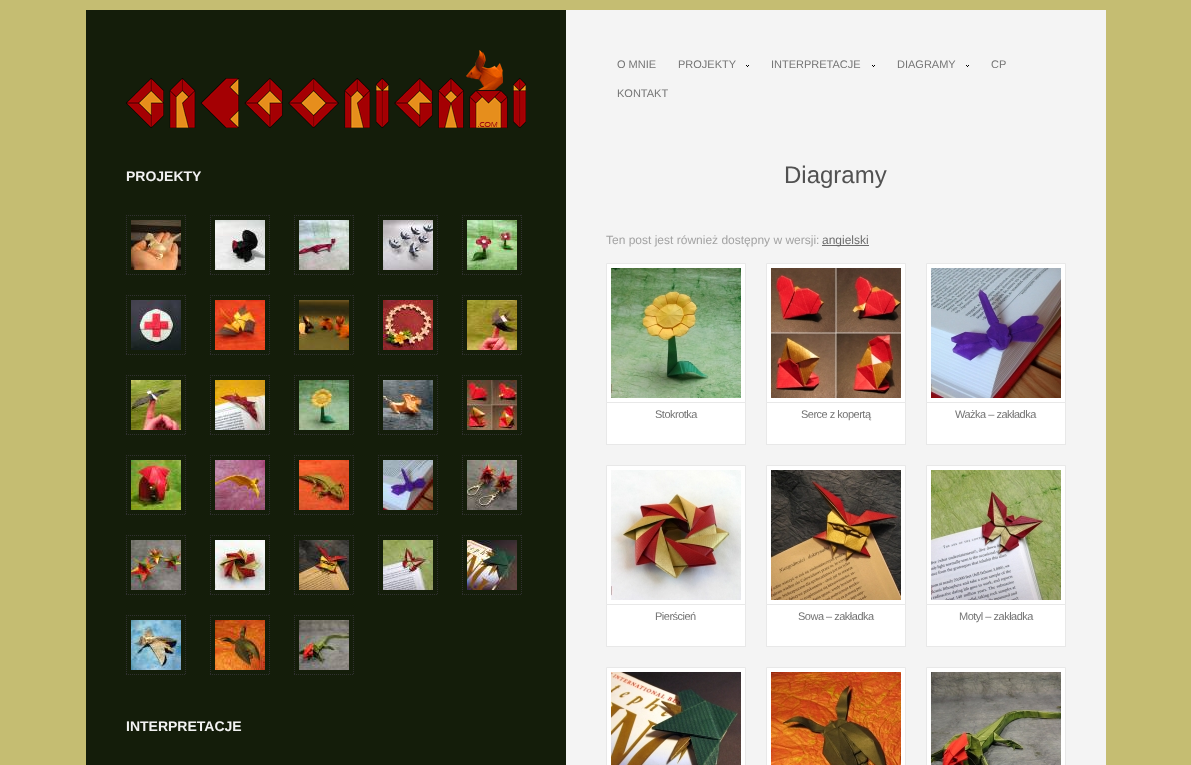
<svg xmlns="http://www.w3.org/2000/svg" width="1191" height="765">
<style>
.a{font:bold 14px Liberation Sans;fill:#f2f2f2}
.b{font:11px Liberation Sans;fill:#747474}
.c{font:24px Liberation Sans;fill:#515151}
.d{font:12px Liberation Sans;fill:#a3a3a3}
.e{font:12px Liberation Sans;fill:#6c6c6c}
.f{font:11px Liberation Sans;letter-spacing:-0.5px;fill:#747474}
</style>
<rect width="100%" height="100%" fill="#c5bd72"/>
<image href="1.png" x="86" y="10" width="1020" height="755"/>
<image href="2.png" x="126" y="50" width="400" height="78"/>
<path fill="none" stroke="#303030" stroke-dasharray="1 1" d="M126 215.5h60m-.5-.5v60m-59.5-.5h60m-59.5-59.5v60"/>
<image href="3.png" x="131" y="220" width="50" height="50"/>
<path fill="none" stroke="#303030" stroke-dasharray="1 1" d="M210 215.5h60m-.5-.5v60m-59.5-.5h60m-59.5-59.5v60"/>
<image href="4.png" x="215" y="220" width="50" height="50"/>
<path fill="none" stroke="#303030" stroke-dasharray="1 1" d="M294 215.5h60m-.5-.5v60m-59.5-.5h60m-59.5-59.5v60"/>
<image href="5.png" x="299" y="220" width="50" height="50"/>
<path fill="none" stroke="#303030" stroke-dasharray="1 1" d="M378 215.5h60m-.5-.5v60m-59.5-.5h60m-59.5-59.5v60"/>
<image href="6.png" x="383" y="220" width="50" height="50"/>
<path fill="none" stroke="#303030" stroke-dasharray="1 1" d="M462 215.5h60m-.5-.5v60m-59.5-.5h60m-59.5-59.5v60"/>
<image href="7.png" x="467" y="220" width="50" height="50"/>
<path fill="none" stroke="#303030" stroke-dasharray="1 1" d="M126 295.5h60m-.5-.5v60m-59.5-.5h60m-59.5-59.5v60"/>
<image href="8.png" x="131" y="300" width="50" height="50"/>
<path fill="none" stroke="#303030" stroke-dasharray="1 1" d="M210 295.5h60m-.5-.5v60m-59.5-.5h60m-59.5-59.5v60"/>
<image href="9.png" x="215" y="300" width="50" height="50"/>
<path fill="none" stroke="#303030" stroke-dasharray="1 1" d="M294 295.5h60m-.5-.5v60m-59.5-.5h60m-59.5-59.5v60"/>
<image href="10.png" x="299" y="300" width="50" height="50"/>
<path fill="none" stroke="#303030" stroke-dasharray="1 1" d="M378 295.5h60m-.5-.5v60m-59.5-.5h60m-59.5-59.5v60"/>
<image href="11.png" x="383" y="300" width="50" height="50"/>
<path fill="none" stroke="#303030" stroke-dasharray="1 1" d="M462 295.5h60m-.5-.5v60m-59.5-.5h60m-59.5-59.5v60"/>
<image href="12.png" x="467" y="300" width="50" height="50"/>
<path fill="none" stroke="#303030" stroke-dasharray="1 1" d="M126 375.5h60m-.5-.5v60m-59.5-.5h60m-59.5-59.5v60"/>
<image href="13.png" x="131" y="380" width="50" height="50"/>
<path fill="none" stroke="#303030" stroke-dasharray="1 1" d="M210 375.5h60m-.5-.5v60m-59.5-.5h60m-59.5-59.5v60"/>
<image href="14.png" x="215" y="380" width="50" height="50"/>
<path fill="none" stroke="#303030" stroke-dasharray="1 1" d="M294 375.5h60m-.5-.5v60m-59.5-.5h60m-59.5-59.5v60"/>
<image href="15.png" x="299" y="380" width="50" height="50"/>
<path fill="none" stroke="#303030" stroke-dasharray="1 1" d="M378 375.5h60m-.5-.5v60m-59.5-.5h60m-59.5-59.5v60"/>
<image href="16.png" x="383" y="380" width="50" height="50"/>
<path fill="none" stroke="#303030" stroke-dasharray="1 1" d="M462 375.5h60m-.5-.5v60m-59.5-.5h60m-59.5-59.5v60"/>
<image href="17.png" x="467" y="380" width="50" height="50"/>
<path fill="none" stroke="#303030" stroke-dasharray="1 1" d="M126 455.5h60m-.5-.5v60m-59.5-.5h60m-59.5-59.5v60"/>
<image href="18.png" x="131" y="460" width="50" height="50"/>
<path fill="none" stroke="#303030" stroke-dasharray="1 1" d="M210 455.5h60m-.5-.5v60m-59.5-.5h60m-59.5-59.5v60"/>
<image href="19.png" x="215" y="460" width="50" height="50"/>
<path fill="none" stroke="#303030" stroke-dasharray="1 1" d="M294 455.5h60m-.5-.5v60m-59.5-.5h60m-59.5-59.5v60"/>
<image href="20.png" x="299" y="460" width="50" height="50"/>
<path fill="none" stroke="#303030" stroke-dasharray="1 1" d="M378 455.5h60m-.5-.5v60m-59.5-.5h60m-59.5-59.5v60"/>
<image href="21.png" x="383" y="460" width="50" height="50"/>
<path fill="none" stroke="#303030" stroke-dasharray="1 1" d="M462 455.5h60m-.5-.5v60m-59.5-.5h60m-59.5-59.5v60"/>
<image href="22.png" x="467" y="460" width="50" height="50"/>
<path fill="none" stroke="#303030" stroke-dasharray="1 1" d="M126 535.5h60m-.5-.5v60m-59.5-.5h60m-59.5-59.5v60"/>
<image href="23.png" x="131" y="540" width="50" height="50"/>
<path fill="none" stroke="#303030" stroke-dasharray="1 1" d="M210 535.5h60m-.5-.5v60m-59.5-.5h60m-59.5-59.5v60"/>
<image href="24.png" x="215" y="540" width="50" height="50"/>
<path fill="none" stroke="#303030" stroke-dasharray="1 1" d="M294 535.5h60m-.5-.5v60m-59.5-.5h60m-59.5-59.5v60"/>
<image href="25.png" x="299" y="540" width="50" height="50"/>
<path fill="none" stroke="#303030" stroke-dasharray="1 1" d="M378 535.5h60m-.5-.5v60m-59.5-.5h60m-59.5-59.5v60"/>
<image href="26.png" x="383" y="540" width="50" height="50"/>
<path fill="none" stroke="#303030" stroke-dasharray="1 1" d="M462 535.5h60m-.5-.5v60m-59.5-.5h60m-59.5-59.5v60"/>
<image href="27.png" x="467" y="540" width="50" height="50"/>
<path fill="none" stroke="#303030" stroke-dasharray="1 1" d="M126 615.5h60m-.5-.5v60m-59.5-.5h60m-59.5-59.5v60"/>
<image href="28.png" x="131" y="620" width="50" height="50"/>
<path fill="none" stroke="#303030" stroke-dasharray="1 1" d="M210 615.5h60m-.5-.5v60m-59.5-.5h60m-59.5-59.5v60"/>
<image href="29.png" x="215" y="620" width="50" height="50"/>
<path fill="none" stroke="#303030" stroke-dasharray="1 1" d="M294 615.5h60m-.5-.5v60m-59.5-.5h60m-59.5-59.5v60"/>
<image href="30.png" x="299" y="620" width="50" height="50"/>
<image href="31.png" x="746" y="65" width="3" height="2"/>
<image href="31.png" x="872" y="65" width="3" height="2"/>
<image href="31.png" x="966" y="65" width="3" height="2"/>
<path fill="#6c6c6c" d="M822 245h47v1H822z"/>
<path fill="#e8e8e8" d="M745 398h1v47H745z"/>
<path fill="#e8e8e8" d="M606 444h140v1H606z"/>
<path fill="#e8e8e8" d="M606 398h1v47H606z"/>
<path fill="#fff" stroke="#e8e8e8" d="M606.5 263.5h139v139H606.5z"/>
<image href="32.png" x="611" y="268" width="130" height="130"/>
<path fill="#fff" d="M607 403h138v41H607z"/>
<path fill="#e8e8e8" d="M905 398h1v47H905z"/>
<path fill="#e8e8e8" d="M766 444h140v1H766z"/>
<path fill="#e8e8e8" d="M766 398h1v47H766z"/>
<path fill="#fff" stroke="#e8e8e8" d="M766.5 263.5h139v139H766.5z"/>
<image href="33.png" x="771" y="268" width="130" height="130"/>
<path fill="#fff" d="M767 403h138v41H767z"/>
<path fill="#e8e8e8" d="M1065 398h1v47H1065z"/>
<path fill="#e8e8e8" d="M926 444h140v1H926z"/>
<path fill="#e8e8e8" d="M926 398h1v47H926z"/>
<path fill="#fff" stroke="#e8e8e8" d="M926.5 263.5h139v139H926.5z"/>
<image href="34.png" x="931" y="268" width="130" height="130"/>
<path fill="#fff" d="M927 403h138v41H927z"/>
<path fill="#e8e8e8" d="M745 600h1v47H745z"/>
<path fill="#e8e8e8" d="M606 646h140v1H606z"/>
<path fill="#e8e8e8" d="M606 600h1v47H606z"/>
<path fill="#fff" stroke="#e8e8e8" d="M606.5 465.5h139v139H606.5z"/>
<image href="35.png" x="611" y="470" width="130" height="130"/>
<path fill="#fff" d="M607 605h138v41H607z"/>
<path fill="#e8e8e8" d="M905 600h1v47H905z"/>
<path fill="#e8e8e8" d="M766 646h140v1H766z"/>
<path fill="#e8e8e8" d="M766 600h1v47H766z"/>
<path fill="#fff" stroke="#e8e8e8" d="M766.5 465.5h139v139H766.5z"/>
<image href="36.png" x="771" y="470" width="130" height="130"/>
<path fill="#fff" d="M767 605h138v41H767z"/>
<path fill="#e8e8e8" d="M1065 600h1v47H1065z"/>
<path fill="#e8e8e8" d="M926 646h140v1H926z"/>
<path fill="#e8e8e8" d="M926 600h1v47H926z"/>
<path fill="#fff" stroke="#e8e8e8" d="M926.5 465.5h139v139H926.5z"/>
<image href="37.png" x="931" y="470" width="130" height="130"/>
<path fill="#fff" d="M927 605h138v41H927z"/>
<path fill="#fff" stroke="#e8e8e8" d="M606.5 667.5h139v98H606.5z"/>
<image href="38.png" x="611" y="672" width="130" height="93"/>
<path fill="#fff" stroke="#e8e8e8" d="M766.5 667.5h139v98H766.5z"/>
<image href="39.png" x="771" y="672" width="130" height="93"/>
<path fill="#fff" stroke="#e8e8e8" d="M926.5 667.5h139v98H926.5z"/>
<image href="40.png" x="931" y="672" width="130" height="93"/>
<text class="a" x="126" y="181">PROJEKTY</text>
<text class="a" x="126" y="731">INTERPRETACJE</text>
<text class="b" x="617" y="68">O MNIE</text>
<text class="b" x="678" y="68">PROJEKTY</text>
<text class="b" x="771" y="68">INTERPRETACJE</text>
<text class="b" x="897" y="68">DIAGRAMY</text>
<text class="b" x="991" y="68">CP</text>
<text class="b" x="617" y="97">KONTAKT</text>
<text class="c" x="784" y="183">Diagramy</text>
<text class="d" x="606" y="244">Ten post jest również dostępny w wersji:</text>
<text class="e" x="822" y="244">angielski</text>
<text class="f" x="655" y="418">Stokrotka</text>
<text class="f" x="801" y="418">Serce z kopertą</text>
<text class="f" x="955" y="418">Ważka – zakładka</text>
<text class="f" x="655" y="620">Pierścień</text>
<text class="f" x="798" y="620">Sowa – zakładka</text>
<text class="f" x="959" y="620">Motyl – zakładka</text>
</svg>
